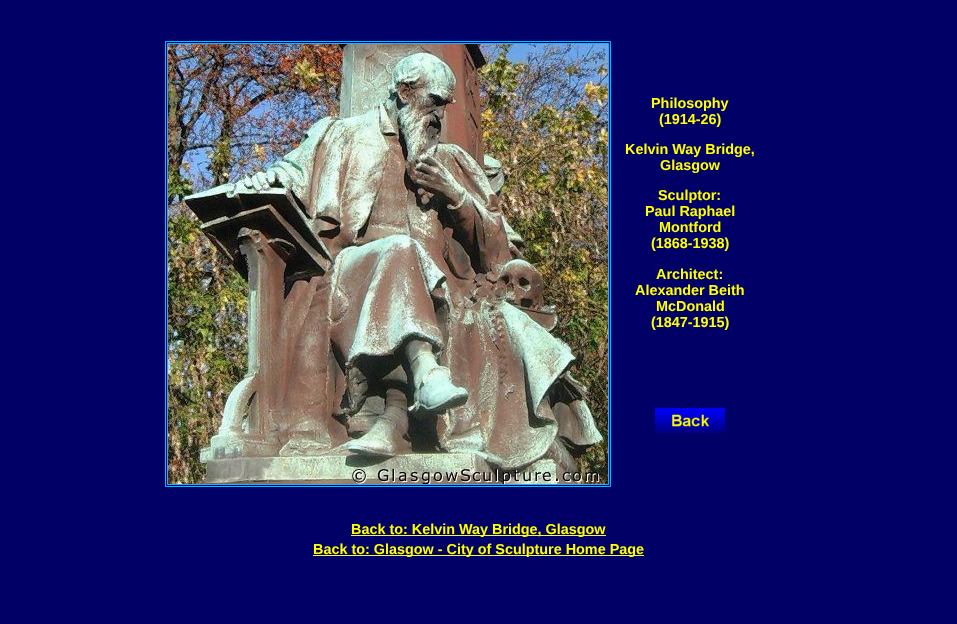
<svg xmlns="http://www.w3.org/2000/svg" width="957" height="624">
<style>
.a{font:bold 14.4px Liberation Sans;fill:#ff0}
</style>
<rect width="100%" height="100%" fill="#006"/>
<path fill="none" stroke="#00bfff" d="M165.5 41.5h445v445H165.5z"/>
<path fill="none" stroke="#00bfff" d="M167.5 43.5h441v441H167.5z"/>
<image href="1.png" x="168" y="44" width="440" height="440"/>
<image href="2.png" x="655" y="408" width="70" height="25"/>
<path fill="#ff0" d="M351 535h255v1H351z"/>
<path fill="#ff0" d="M313 555h331v1H313z"/>
<text class="a" x="651" y="108">Philosophy</text>
<text class="a" x="659" y="124">(1914-26)</text>
<text class="a" x="625" y="154">Kelvin Way Bridge,</text>
<text class="a" x="660" y="170">Glasgow</text>
<text class="a" x="658" y="200">Sculptor:</text>
<text class="a" x="645" y="216">Paul Raphael</text>
<text class="a" x="659" y="232">Montford</text>
<text class="a" x="651" y="248">(1868-1938)</text>
<text class="a" x="656" y="279">Architect:</text>
<text class="a" x="635" y="295">Alexander Beith</text>
<text class="a" x="656" y="311">McDonald</text>
<text class="a" x="651" y="327">(1847-1915)</text>
<text class="a" x="351" y="534">Back to: Kelvin Way Bridge, Glasgow</text>
<text class="a" x="313" y="554">Back to: Glasgow - City of Sculpture Home Page</text>
</svg>
